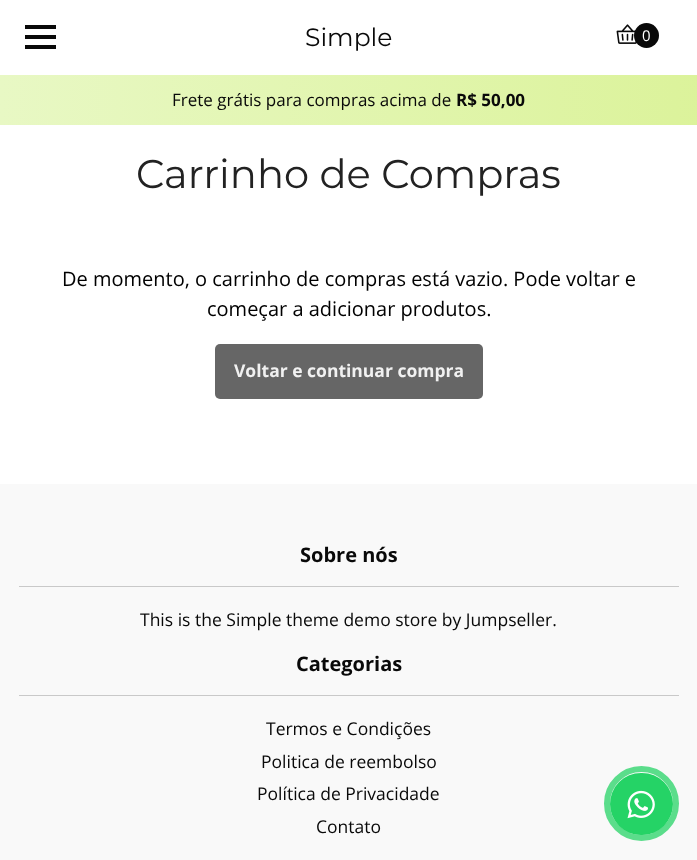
<svg xmlns="http://www.w3.org/2000/svg" width="697" height="860">
<style>
.a{font:25px Montserrat;fill:#090909}
.b{font:15px Open Sans;fill:#fff}
.c{font:17px Open Sans;fill:#090909}
.d{font:bold 17px Open Sans;fill:#090909}
.e{font:40px Montserrat;fill:#222}
.f{font:20px Open Sans;fill:#000}
.g{font:bold 17.5px Open Sans;fill:#f1f1f1}
.h{font:bold 20px Open Sans;fill:#090909}
.i{font:17.5px Open Sans;fill:#090909}
</style>
<defs>
<linearGradient id="g1" gradientUnits="userSpaceOnUse" x1="0" y1="100" x2="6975" y2="100"><stop offset="0" stop-color="#e8f8c4"/><stop offset="0.33" stop-color="#bfe73c"/><stop offset="0.67" stop-color="#bcf6ce"/><stop offset="1" stop-color="#b2d7f5"/></linearGradient>
</defs>
<rect width="100%" height="100%" fill="#fff"/>
<path fill="#090909" d="M25 25h31v4H25z"/>
<path fill="#090909" d="M25 35h31v4H25z"/>
<path fill="#090909" d="M25 45h31v4H25z"/>
<image href="1.png" x="616" y="24" width="21" height="20"/>
<circle fill="#090909" cx="646.5" cy="35.5" r="12.5"/>
<path fill="url(#g1)" d="M0 75h697v50H0z"/>
<rect fill="#666" x="215" y="344" width="268" height="55" rx="5"/>
<path fill="#f9f9f9" d="M0 484h697v376H0z"/>
<path fill="#c9c9c9" d="M19 586h660v1H19z"/>
<path fill="#c9c9c9" d="M19 695h660v1H19z"/>
<rect fill="#25d366" x="610" y="773" width="63" height="62" rx="31"/>
<image href="2.png" x="627" y="790" width="28" height="29"/>
<circle fill="none" stroke="#25d366bf" stroke-width="6" cx="641.5" cy="803.5" r="34.5"/>
<text class="a" x="305" y="46">Simple</text>
<text class="b" x="642" y="41">0</text>
<text class="c" x="172" y="106">Frete grátis para compras acima de</text>
<text class="d" x="456" y="106">R$ 50,00</text>
<text class="e" x="136" y="188">Carrinho de Compras</text>
<text class="f" x="62" y="286">De momento, o carrinho de compras está vazio. Pode voltar e</text>
<text class="f" x="207" y="316">começar a adicionar produtos.</text>
<text class="g" x="234" y="377">Voltar e continuar compra</text>
<text class="h" x="300" y="562">Sobre nós</text>
<text class="i" x="140" y="626">This is the Simple theme demo store by Jumpseller.</text>
<text class="h" x="296" y="671">Categorias</text>
<text class="i" x="266" y="735">Termos e Condições</text>
<text class="i" x="261" y="768">Politica de reembolso</text>
<text class="i" x="257" y="800">Política de Privacidade</text>
<text class="i" x="316" y="833">Contato</text>
</svg>
